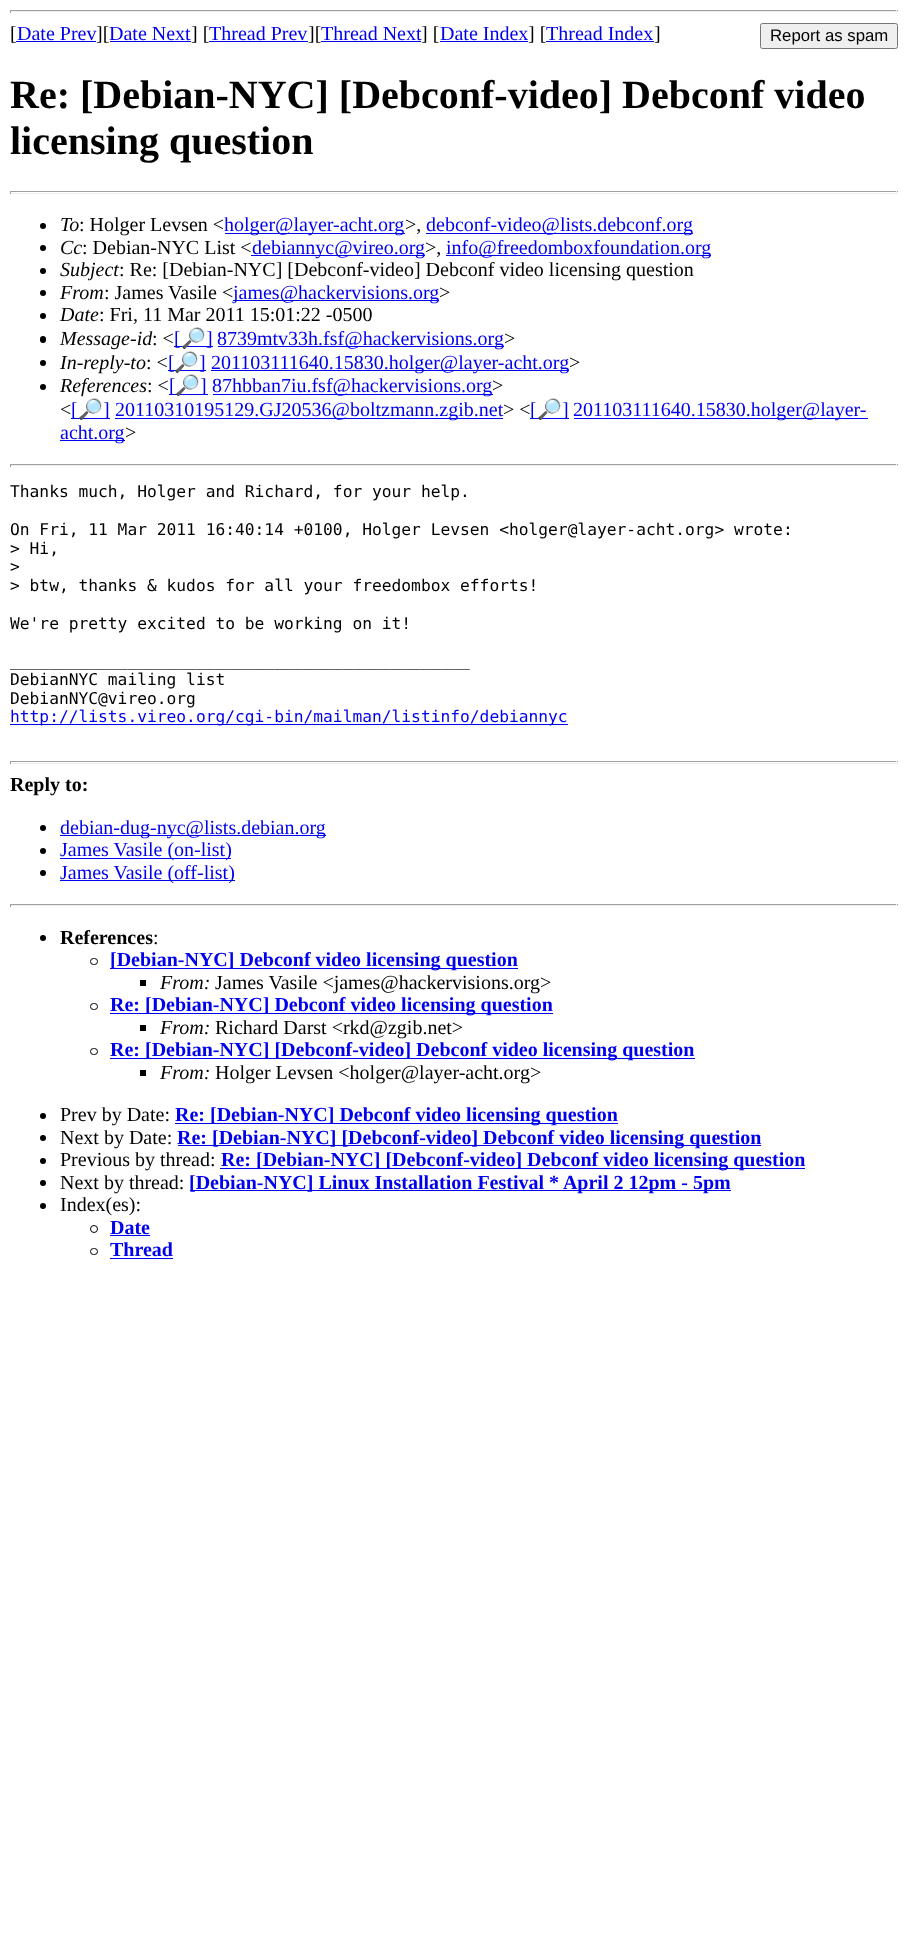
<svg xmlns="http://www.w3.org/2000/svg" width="907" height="1955">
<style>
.a{font:20px Liberation Serif;fill:#000}
.b{font:20px Liberation Serif;fill:#00e}
.c{font:16.75px Liberation Sans;fill:#000}
.d{font:bold 40px Liberation Serif;fill:#000}
.e{font:italic 20px Liberation Serif;fill:#000}
.f{font:20px Noto Color Emoji;fill:#00e}
.g{font:16.25px DejaVu Sans Mono;fill:#000}
.h{font:16.25px DejaVu Sans Mono;fill:#00e}
.i{font:bold 20px Liberation Serif;fill:#000}
.j{font:bold 20px Liberation Serif;fill:#00e}
</style>
<rect width="100%" height="100%" fill="#fff"/>
<path fill="#9f9f9f" d="M10 10h888v1H10z"/>
<path fill="#eee" d="M896 10h1v3H896z"/>
<path fill="#eee" d="M10 11h888v1H10z"/>
<path fill="#9f9f9f" d="M10 10h1v3H10z"/>
<path fill="#00e" d="M16 41h80v1H16z"/>
<path fill="#00e" d="M110 41h81v1H110z"/>
<path fill="#00e" d="M209 41h99v1H209z"/>
<path fill="#00e" d="M321 41h100v1H321z"/>
<path fill="#00e" d="M440 41h88v1H440z"/>
<path fill="#00e" d="M546 41h108v1H546z"/>
<rect fill="#efefef" stroke="#767676" x="760.5" y="23.5" width="137" height="25" rx="2"/>
<path fill="#9f9f9f" d="M10 191h888v1H10z"/>
<path fill="#eee" d="M896 191h1v3H896z"/>
<path fill="#eee" d="M10 193h888v1H10z"/>
<path fill="#9f9f9f" d="M10 191h1v3H10z"/>
<circle fill="#000" cx="43" cy="226" r="3"/>
<path fill="#00e" d="M225 233h180v1H225z"/>
<path fill="#00e" d="M426 233h267v1H426z"/>
<circle fill="#000" cx="43" cy="248" r="3"/>
<path fill="#00e" d="M251 255h174v1H251z"/>
<path fill="#00e" d="M446 255h265v1H446z"/>
<circle fill="#000" cx="43" cy="271" r="3"/>
<circle fill="#000" cx="43" cy="293" r="3"/>
<path fill="#00e" d="M233 300h206v1H233z"/>
<circle fill="#000" cx="43" cy="316" r="3"/>
<rect fill="#000" x="40" y="336" width="6" height="7" rx="3"/>
<path fill="#00e" d="M174 346h39v1H174z"/>
<path fill="#00e" d="M218 346h286v1H218z"/>
<circle fill="#000" cx="43" cy="363" r="3"/>
<path fill="#00e" d="M168 370h38v1H168z"/>
<path fill="#00e" d="M211 370h358v1H211z"/>
<circle fill="#000" cx="43" cy="387" r="3"/>
<path fill="#00e" d="M169 394h39v1H169z"/>
<path fill="#00e" d="M213 394h280v1H213z"/>
<path fill="#00e" d="M71 418h39v1H71z"/>
<path fill="#00e" d="M115 418h388v1H115z"/>
<path fill="#00e" d="M530 418h39v1H530z"/>
<path fill="#00e" d="M574 418h294v1H574z"/>
<path fill="#00e" d="M60 440h65v1H60z"/>
<path fill="#9f9f9f" d="M10 464h888v1H10z"/>
<path fill="#eee" d="M896 464h1v3H896z"/>
<path fill="#eee" d="M10 465h888v1H10z"/>
<path fill="#9f9f9f" d="M10 464h1v3H10z"/>
<path fill="#00e" d="M10 724h558v1H10z"/>
<path fill="#9f9f9f" d="M10 761h888v1H10z"/>
<path fill="#eee" d="M896 761h1v3H896z"/>
<path fill="#eee" d="M10 763h888v1H10z"/>
<path fill="#9f9f9f" d="M10 761h1v3H10z"/>
<circle fill="#000" cx="43" cy="828" r="3"/>
<path fill="#00e" d="M60 835h266v1H60z"/>
<circle fill="#000" cx="43" cy="851" r="3"/>
<path fill="#00e" d="M60 858h171v1H60z"/>
<circle fill="#000" cx="43" cy="873" r="3"/>
<path fill="#00e" d="M60 880h175v1H60z"/>
<path fill="#9f9f9f" d="M10 904h888v1H10z"/>
<path fill="#eee" d="M896 904h1v3H896z"/>
<path fill="#eee" d="M10 905h888v1H10z"/>
<path fill="#9f9f9f" d="M10 904h1v3H10z"/>
<circle fill="#000" cx="43" cy="938" r="3"/>
<rect fill="none" stroke="#000" x="90.5" y="958.5" width="7" height="6" rx="3"/>
<path fill="#00e" d="M110 968h408v1H110z"/>
<path fill="#000" d="M140 980h6v6H140z"/>
<rect fill="none" stroke="#000" x="90.5" y="1003.5" width="7" height="6" rx="3"/>
<path fill="#00e" d="M110 1013h443v1H110z"/>
<path fill="#000" d="M140 1025h6v6H140z"/>
<rect fill="none" stroke="#000" x="90.5" y="1048.5" width="7" height="6" rx="3"/>
<path fill="#00e" d="M110 1058h585v1H110z"/>
<path fill="#000" d="M140 1070h6v6H140z"/>
<circle fill="#000" cx="43" cy="1116" r="3"/>
<path fill="#00e" d="M175 1123h443v1H175z"/>
<circle fill="#000" cx="43" cy="1138" r="3"/>
<path fill="#00e" d="M178 1145h583v1H178z"/>
<circle fill="#000" cx="43" cy="1161" r="3"/>
<path fill="#00e" d="M220 1168h585v1H220z"/>
<circle fill="#000" cx="43" cy="1183" r="3"/>
<path fill="#00e" d="M190 1190h541v1H190z"/>
<circle fill="#000" cx="43" cy="1206" r="3"/>
<circle fill="none" stroke="#000" cx="94" cy="1229" r="3.5"/>
<path fill="#00e" d="M110 1235h40v1H110z"/>
<rect fill="none" stroke="#000" x="90.5" y="1248.5" width="7" height="6" rx="3"/>
<path fill="#00e" d="M110 1258h63v1H110z"/>
<text class="a" x="10" y="40">[</text>
<text class="b" x="17" y="40">Date Prev</text>
<text class="a" x="96" y="40">][</text>
<text class="b" x="109" y="40">Date Next</text>
<text class="a" x="191" y="40">] [</text>
<text class="b" x="209" y="40">Thread Prev</text>
<text class="a" x="308" y="40">][</text>
<text class="b" x="321" y="40">Thread Next</text>
<text class="a" x="421" y="40">] [</text>
<text class="b" x="440" y="40">Date Index</text>
<text class="a" x="528" y="40">] [</text>
<text class="b" x="546" y="40">Thread Index</text>
<text class="a" x="654" y="40">]</text>
<text class="c" x="770" y="41">Report as spam</text>
<text class="d" x="10" y="108">Re: [Debian-NYC] [Debconf-video] Debconf video</text>
<text class="d" x="10" y="154">licensing question</text>
<text class="e" x="60" y="231">To</text>
<text class="a" x="79" y="231">: Holger Levsen &lt;</text>
<text class="b" x="224" y="231">holger@layer-acht.org</text>
<text class="a" x="405" y="231">&gt;,</text>
<text class="b" x="426" y="231">debconf-video@lists.debconf.org</text>
<text class="e" x="60" y="254">Cc</text>
<text class="a" x="82" y="254">: Debian-NYC List &lt;</text>
<text class="b" x="252" y="254">debiannyc@vireo.org</text>
<text class="a" x="425" y="254">&gt;,</text>
<text class="b" x="446" y="254">info@freedomboxfoundation.org</text>
<text class="e" x="60" y="276">Subject</text>
<text class="a" x="119" y="276">: Re: [Debian-NYC] [Debconf-video] Debconf video licensing question</text>
<text class="e" x="60" y="299">From</text>
<text class="a" x="104" y="299">: James Vasile &lt;</text>
<text class="b" x="233" y="299">james@hackervisions.org</text>
<text class="a" x="439" y="299">&gt;</text>
<text class="e" x="60" y="321">Date</text>
<text class="a" x="99" y="321">: Fri, 11 Mar 2011 15:01:22 -0500</text>
<text class="e" x="60" y="345">Message-id</text>
<text class="a" x="152" y="345">: &lt;</text>
<text class="b" x="174" y="345">[</text>
<text class="f" x="181" y="345">🔎</text>
<text class="b" x="206" y="345">]</text>
<text class="b" x="217" y="345">8739mtv33h.fsf@hackervisions.org</text>
<text class="a" x="504" y="345">&gt;</text>
<text class="e" x="60" y="369">In-reply-to</text>
<text class="a" x="146" y="369">: &lt;</text>
<text class="b" x="168" y="369">[</text>
<text class="f" x="174" y="369">🔎</text>
<text class="b" x="199" y="369">]</text>
<text class="b" x="211" y="369">201103111640.15830.holger@layer-acht.org</text>
<text class="a" x="569" y="369">&gt;</text>
<text class="e" x="60" y="392">References</text>
<text class="a" x="147" y="392">: &lt;</text>
<text class="b" x="169" y="392">[</text>
<text class="f" x="175" y="392">🔎</text>
<text class="b" x="200" y="392">]</text>
<text class="b" x="212" y="392">87hbban7iu.fsf@hackervisions.org</text>
<text class="a" x="492" y="392">&gt;</text>
<text class="a" x="60" y="416">&lt;</text>
<text class="b" x="71" y="416">[</text>
<text class="f" x="78" y="416">🔎</text>
<text class="b" x="103" y="416">]</text>
<text class="b" x="115" y="416">20110310195129.GJ20536@boltzmann.zgib.net</text>
<text class="a" x="503" y="416">&gt; &lt;</text>
<text class="b" x="530" y="416">[</text>
<text class="f" x="537" y="416">🔎</text>
<text class="b" x="562" y="416">]</text>
<text class="b" x="573" y="416">201103111640.15830.holger@layer-</text>
<text class="b" x="60" y="439">acht.org</text>
<text class="a" x="125" y="439">&gt;</text>
<text class="g" x="10" y="497">Thanks much, Holger and Richard, for your help.</text>
<text class="g" x="10" y="535">On Fri, 11 Mar 2011 16:40:14 +0100, Holger Levsen &lt;holger@layer-acht.org&gt; wrote:</text>
<text class="g" x="10" y="554">&gt; Hi,</text>
<text class="g" x="10" y="572">&gt;</text>
<text class="g" x="10" y="591">&gt; btw, thanks &amp; kudos for all your freedombox efforts!</text>
<text class="g" x="10" y="629">We're pretty excited to be working on it!</text>
<text class="g" x="10" y="666">_______________________________________________</text>
<text class="g" x="10" y="685">DebianNYC mailing list</text>
<text class="g" x="10" y="704">DebianNYC@vireo.org</text>
<text class="h" x="10" y="722">http://lists.vireo.org/cgi-bin/mailman/listinfo/debiannyc</text>
<text class="i" x="10" y="791">Reply to:</text>
<text class="b" x="60" y="834">debian-dug-nyc@lists.debian.org</text>
<text class="b" x="60" y="856">James Vasile (on-list)</text>
<text class="b" x="60" y="879">James Vasile (off-list)</text>
<text class="i" x="60" y="944">References</text>
<text class="a" x="153" y="944">:</text>
<text class="j" x="110" y="966">[Debian-NYC] Debconf video licensing question</text>
<text class="e" x="160" y="989">From:</text>
<text class="a" x="215" y="989">James Vasile &lt;james@hackervisions.org&gt;</text>
<text class="j" x="110" y="1011">Re: [Debian-NYC] Debconf video licensing question</text>
<text class="e" x="160" y="1034">From:</text>
<text class="a" x="215" y="1034">Richard Darst &lt;rkd@zgib.net&gt;</text>
<text class="j" x="110" y="1056">Re: [Debian-NYC] [Debconf-video] Debconf video licensing question</text>
<text class="e" x="160" y="1079">From:</text>
<text class="a" x="215" y="1079">Holger Levsen &lt;holger@layer-acht.org&gt;</text>
<text class="a" x="60" y="1121">Prev by Date:</text>
<text class="j" x="175" y="1121">Re: [Debian-NYC] Debconf video licensing question</text>
<text class="a" x="60" y="1144">Next by Date:</text>
<text class="j" x="177" y="1144">Re: [Debian-NYC] [Debconf-video] Debconf video licensing question</text>
<text class="a" x="60" y="1166">Previous by thread:</text>
<text class="j" x="221" y="1166">Re: [Debian-NYC] [Debconf-video] Debconf video licensing question</text>
<text class="a" x="60" y="1189">Next by thread:</text>
<text class="j" x="189" y="1189">[Debian-NYC] Linux Installation Festival * April 2 12pm - 5pm</text>
<text class="a" x="60" y="1211">Index(es):</text>
<text class="j" x="110" y="1234">Date</text>
<text class="j" x="110" y="1256">Thread</text>
</svg>
